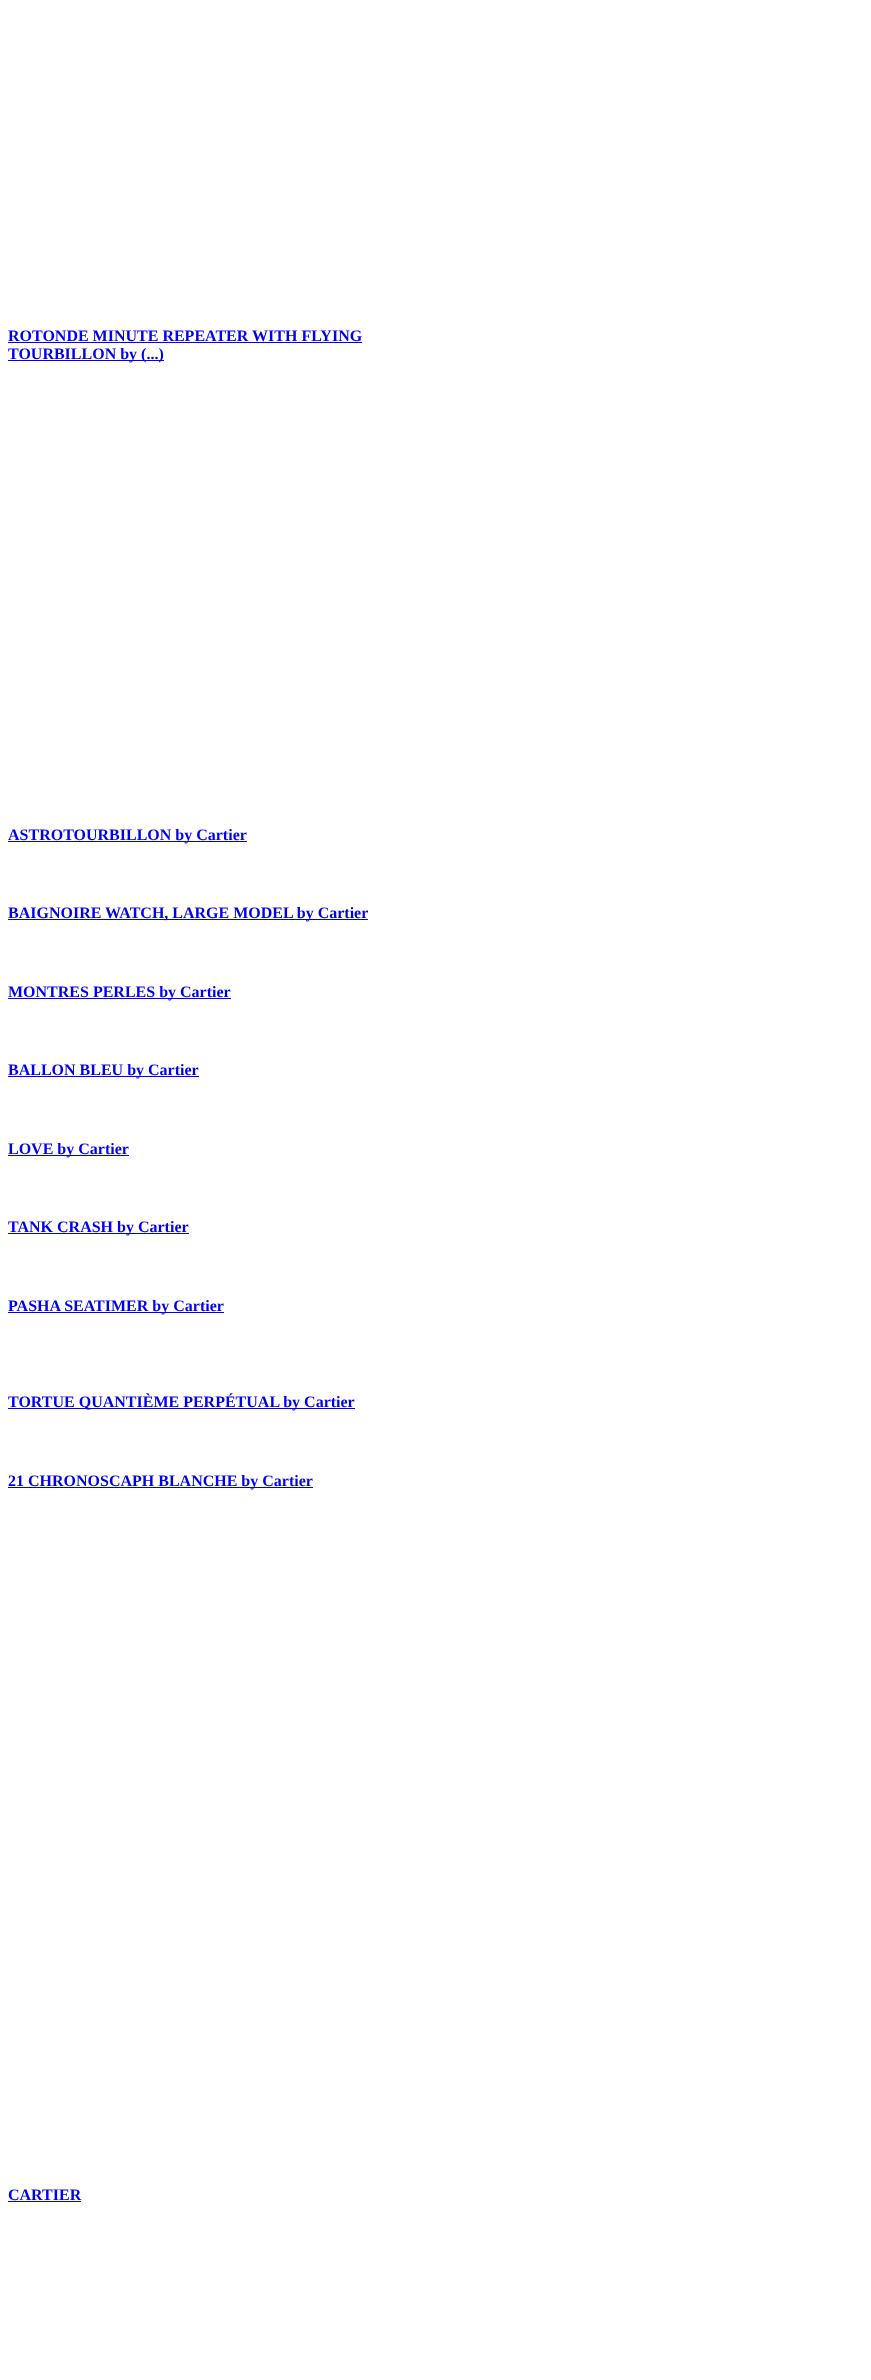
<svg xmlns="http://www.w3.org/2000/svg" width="871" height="2380">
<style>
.a{font:bold 16px Liberation Serif;fill:#00e}
</style>
<rect width="100%" height="100%" fill="#fff"/>
<path fill="#00e" d="M8 342h354v1H8z"/>
<path fill="#00e" d="M8 360h156v1H8z"/>
<path fill="#00e" d="M8 841h239v1H8z"/>
<path fill="#00e" d="M8 919h360v1H8z"/>
<path fill="#00e" d="M8 998h223v1H8z"/>
<path fill="#00e" d="M8 1076h191v1H8z"/>
<path fill="#00e" d="M8 1155h121v1H8z"/>
<path fill="#00e" d="M8 1233h181v1H8z"/>
<path fill="#00e" d="M8 1312h216v1H8z"/>
<path fill="#00e" d="M8 1408h347v1H8z"/>
<path fill="#00e" d="M8 1487h305v1H8z"/>
<path fill="#00e" d="M8 2201h73v1H8z"/>
<text class="a" x="8" y="341">ROTONDE MINUTE REPEATER WITH FLYING</text>
<text class="a" x="8" y="359">TOURBILLON by (...)</text>
<text class="a" x="8" y="840">ASTROTOURBILLON by Cartier</text>
<text class="a" x="8" y="918">BAIGNOIRE WATCH, LARGE MODEL by Cartier</text>
<text class="a" x="8" y="997">MONTRES PERLES by Cartier</text>
<text class="a" x="8" y="1075">BALLON BLEU by Cartier</text>
<text class="a" x="8" y="1154">LOVE by Cartier</text>
<text class="a" x="8" y="1232">TANK CRASH by Cartier</text>
<text class="a" x="8" y="1311">PASHA SEATIMER by Cartier</text>
<text class="a" x="8" y="1407">TORTUE QUANTIÈME PERPÉTUAL by Cartier</text>
<text class="a" x="8" y="1486">21 CHRONOSCAPH BLANCHE by Cartier</text>
<text class="a" x="8" y="2200">CARTIER</text>
</svg>
